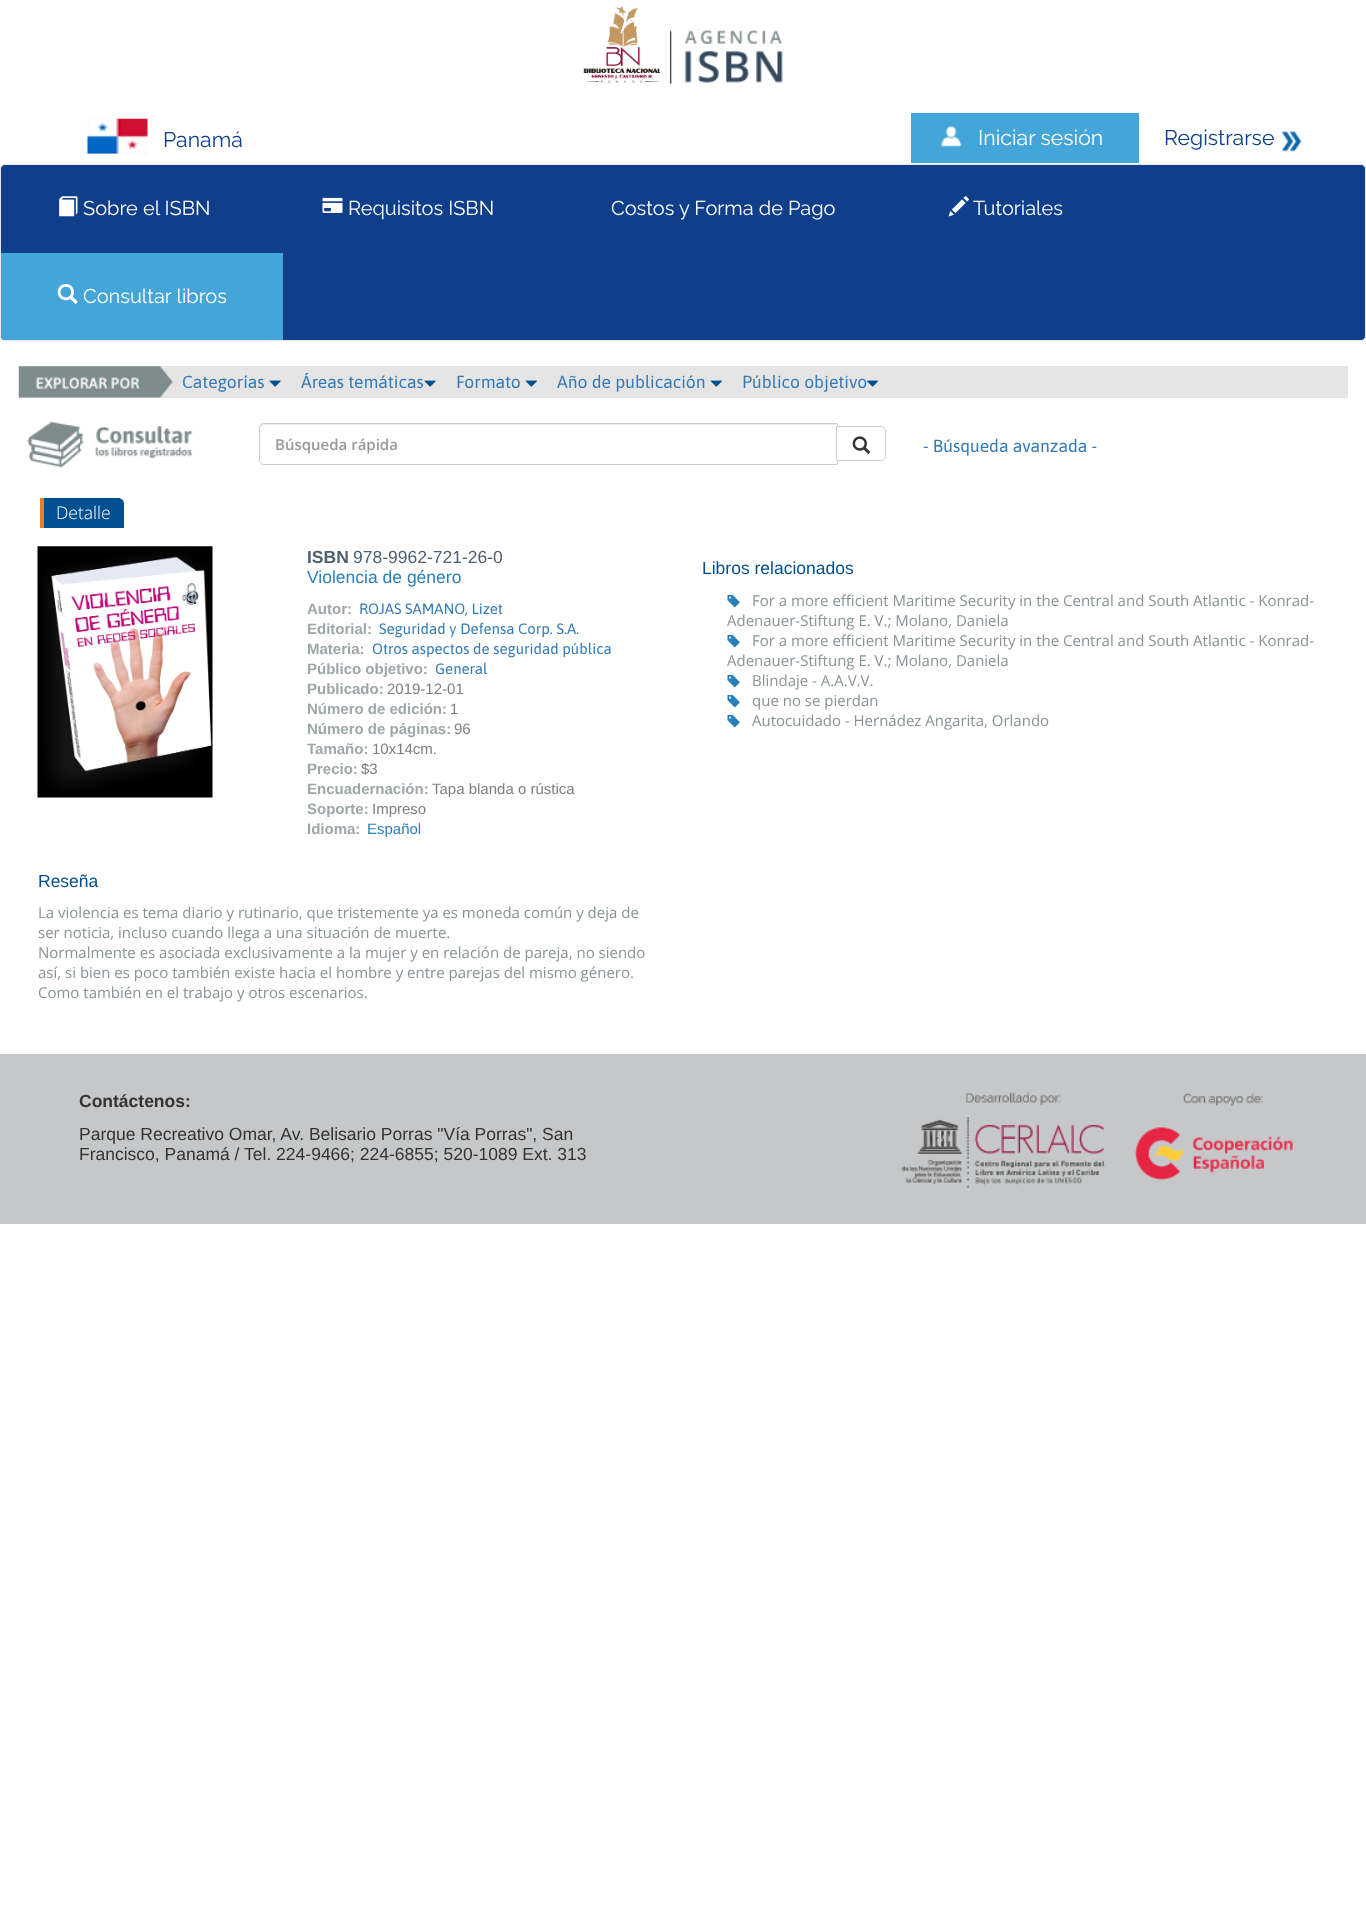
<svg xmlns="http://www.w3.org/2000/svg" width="1366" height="1919">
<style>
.a{font:100 21.25px Raleway;fill:#0f3e8b}
.b{font:100 21.25px Raleway;fill:#fff}
.c{font:100 20px Raleway;fill:#fff}
.d{font:17.5px Asap;fill:#337ab7}
.e{font:600 15px Open Sans;fill:#999}
.f{font:300 17.5px Open Sans;fill:#fff}
.g{font:bold 17.5px Liberation Sans;fill:#4d5f72}
.h{font:17.5px Liberation Sans;fill:#4d5f72}
.i{font:17.5px Liberation Sans;fill:#2980b9}
.j{font:bold 15px Liberation Sans;fill:#9da7a8}
.k{font:15px Asap;fill:#337ab7}
.l{font:15px Liberation Sans;fill:#7c807d}
.m{font:15px Liberation Sans;fill:#2980b9}
.n{font:17.5px Liberation Sans;fill:#02508f}
.o{font:15px Open Sans;fill:#879394}
.p{font:bold 17.5px Liberation Sans;fill:#333}
.q{font:17.5px Liberation Sans;fill:#333}
</style>
<rect width="100%" height="100%" fill="#fff"/>
<image href="1.png" x="583" y="6" width="77" height="78"/>
<image href="2.png" x="670" y="30" width="113" height="54"/>
<image href="3.png" x="87" y="118" width="61" height="36"/>
<path fill="#44a5d9" d="M911 113h228v50H911z"/>
<image href="4.png" x="941" y="126" width="21" height="21"/>
<image href="5.png" x="1281" y="131" width="21" height="21"/>
<rect fill="#0f3e8b" stroke="#e7e7e7" x="0.5" y="164.5" width="1365" height="176" rx="4.5"/>
<image href="6.png" x="59" y="196" width="19" height="21"/>
<image href="7.png" x="322" y="197" width="21" height="16"/>
<image href="8.png" x="948" y="196" width="21" height="21"/>
<path fill="#44a5d9" d="M1 253h282v87h-278c-2 0-4-2-4-4z"/>
<image href="9.png" x="57" y="283" width="21" height="21"/>
<path fill="#e5e5e5" d="M19 366h1329v32H19z"/>
<image href="10.png" x="18" y="366" width="155" height="32"/>
<image href="11.png" x="269" y="380" width="12" height="7"/>
<image href="11.png" x="424" y="380" width="12" height="7"/>
<image href="12.png" x="525" y="380" width="12" height="7"/>
<image href="12.png" x="710" y="380" width="12" height="7"/>
<image href="13.png" x="866" y="380" width="13" height="7"/>
<image href="14.png" x="27" y="421" width="166" height="47"/>
<path fill="#ececec" d="M264 425h572v-1h-572c-3 0-4 2-4 5c0-2 2-4 4-4z"/>
<path fill="none" stroke="#ccc" d="M264 423.5h573.5v41h-573.5c-2.5 0-4.5-2-4.5-4.5v-32c0-2.5 2-4.5 4.5-4.5z"/>
<path fill="#fff" stroke="#ccc" d="M836.5 426.5h44.5c2.5 0 4.5 2 4.5 4.5v25c0 2.5-2 4.5-4.5 4.5h-44.5z"/>
<image href="15.png" x="852" y="436" width="19" height="18"/>
<path fill="#02508f" d="M40 498h78c3.5 0 6 2.5 6 6v24h-84z"/>
<path fill="#e67e22" d="M40 498h4v30H40z"/>
<image href="16.png" x="37" y="546" width="176" height="252"/>
<image href="17.png" x="727" y="595" width="13" height="13"/>
<image href="17.png" x="727" y="635" width="13" height="13"/>
<image href="17.png" x="727" y="675" width="13" height="13"/>
<image href="17.png" x="727" y="695" width="13" height="13"/>
<image href="17.png" x="727" y="715" width="13" height="13"/>
<path fill="#c6c7c8" d="M0 1054h1366v170H0z"/>
<image href="18.png" x="901" y="1092" width="392" height="96"/>
<text class="a" x="163" y="147">Panamá</text>
<text class="b" x="978" y="145">Iniciar sesión</text>
<text class="a" x="1164" y="145">Registrarse</text>
<text class="c" x="83" y="215">Sobre el ISBN</text>
<text class="c" x="348" y="215">Requisitos ISBN</text>
<text class="c" x="611" y="215">Costos y Forma de Pago</text>
<text class="c" x="973" y="215">Tutoriales</text>
<text class="c" x="83" y="303">Consultar libros</text>
<text class="d" x="182" y="388">Categorías</text>
<text class="d" x="301" y="388">Áreas temáticas</text>
<text class="d" x="456" y="388">Formato</text>
<text class="d" x="557" y="388">Año de publicación</text>
<text class="d" x="742" y="388">Público objetivo</text>
<text class="e" x="275" y="450">Búsqueda rápida</text>
<text class="d" x="923" y="452">- Búsqueda avanzada -</text>
<text class="f" x="56" y="519">Detalle</text>
<text class="g" x="307" y="563">ISBN</text>
<text class="h" x="353" y="563">978-9962-721-26-0</text>
<text class="i" x="307" y="583">Violencia de género</text>
<text class="j" x="307" y="614">Autor:</text>
<text class="k" x="359" y="614">ROJAS SAMANO, Lizet</text>
<text class="j" x="307" y="634">Editorial:</text>
<text class="k" x="379" y="634">Seguridad y Defensa Corp. S.A.</text>
<text class="j" x="307" y="654">Materia:</text>
<text class="k" x="372" y="654">Otros aspectos de seguridad pública</text>
<text class="j" x="307" y="674">Público objetivo:</text>
<text class="k" x="435" y="674">General</text>
<text class="j" x="307" y="694">Publicado:</text>
<text class="l" x="387" y="694">2019-12-01</text>
<text class="j" x="307" y="714">Número de edición:</text>
<text class="l" x="450" y="714">1</text>
<text class="j" x="307" y="734">Número de páginas:</text>
<text class="l" x="454" y="734">96</text>
<text class="j" x="307" y="754">Tamaño:</text>
<text class="l" x="372" y="754">10x14cm.</text>
<text class="j" x="307" y="774">Precio:</text>
<text class="l" x="361" y="774">$3</text>
<text class="j" x="307" y="794">Encuadernación:</text>
<text class="l" x="432" y="794">Tapa blanda o rústica</text>
<text class="j" x="307" y="814">Soporte:</text>
<text class="l" x="372" y="814">Impreso</text>
<text class="j" x="307" y="834">Idioma:</text>
<text class="m" x="367" y="834">Español</text>
<text class="n" x="702" y="574">Libros relacionados</text>
<text class="o" x="752" y="606">For a more efficient Maritime Security in the Central and South Atlantic - Konrad-</text>
<text class="o" x="727" y="626">Adenauer-Stiftung E. V.; Molano, Daniela</text>
<text class="o" x="752" y="646">For a more efficient Maritime Security in the Central and South Atlantic - Konrad-</text>
<text class="o" x="727" y="666">Adenauer-Stiftung E. V.; Molano, Daniela</text>
<text class="o" x="752" y="686">Blindaje - A.A.V.V.</text>
<text class="o" x="752" y="706">que no se pierdan</text>
<text class="o" x="752" y="726">Autocuidado - Hernádez Angarita, Orlando</text>
<text class="n" x="38" y="887">Reseña</text>
<text class="o" x="38" y="918">La violencia es tema diario y rutinario, que tristemente ya es moneda común y deja de</text>
<text class="o" x="38" y="938">ser noticia, incluso cuando llega a una situación de muerte.</text>
<text class="o" x="38" y="958">Normalmente es asociada exclusivamente a la mujer y en relación de pareja, no siendo</text>
<text class="o" x="38" y="978">así, si bien es poco también existe hacia el hombre y entre parejas del mismo género.</text>
<text class="o" x="38" y="998">Como también en el trabajo y otros escenarios.</text>
<text class="p" x="79" y="1107">Contáctenos:</text>
<text class="q" x="79" y="1140">Parque Recreativo Omar, Av. Belisario Porras "Vía Porras", San</text>
<text class="q" x="79" y="1160">Francisco, Panamá / Tel. 224-9466; 224-6855; 520-1089 Ext. 313</text>
</svg>
